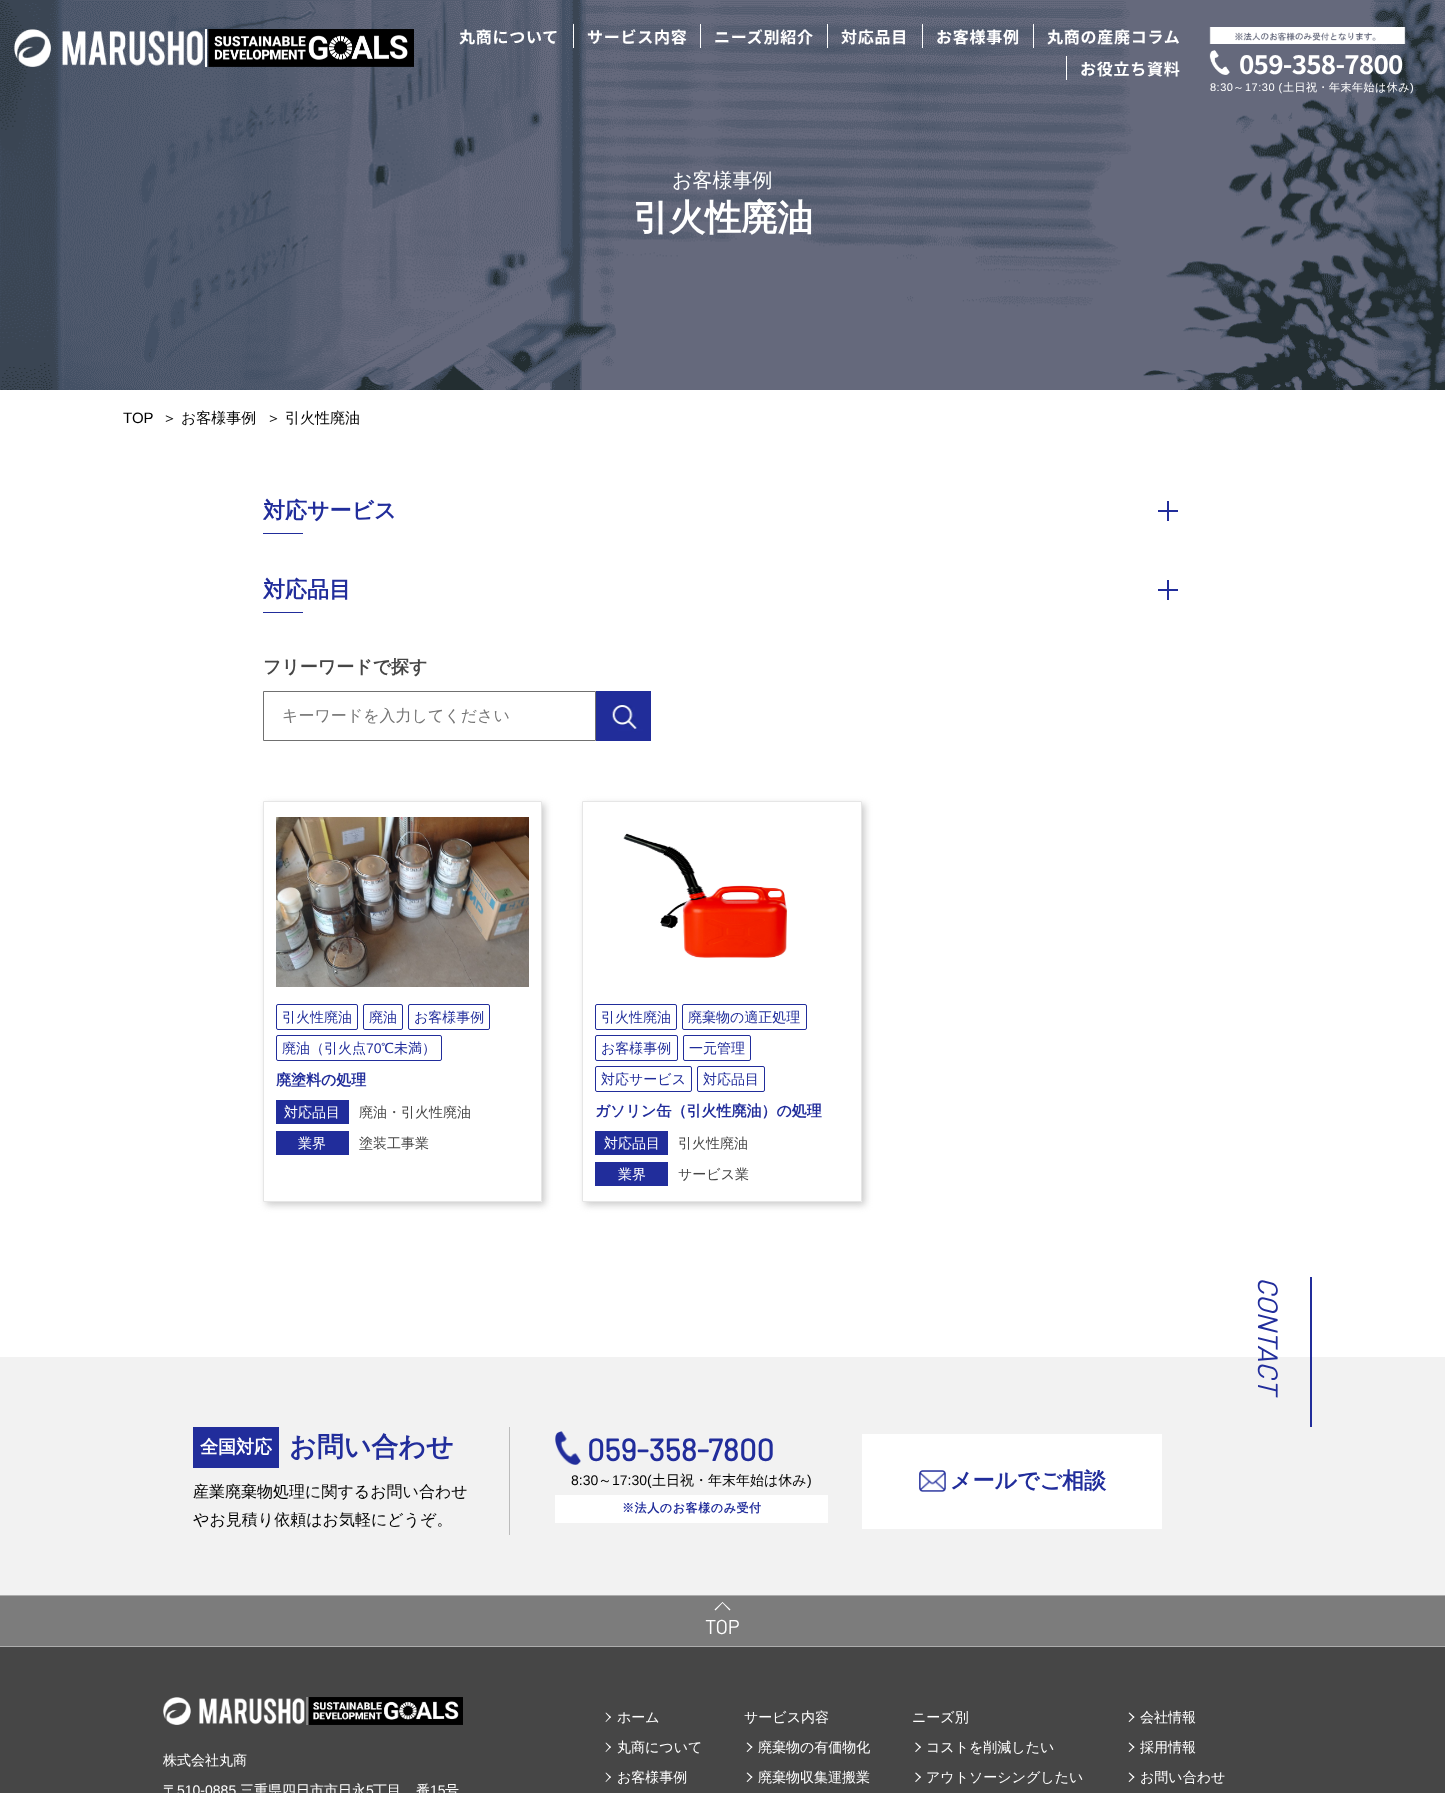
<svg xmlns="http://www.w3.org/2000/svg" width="1445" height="1793">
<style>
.a{font:bold 16px Noto Sans JP;letter-spacing:0.75px;fill:#fff}
.b{font:bold 26px Noto Sans JP;letter-spacing:-0.75px;fill:#fff}
.c{font:11px Liberation Sans;letter-spacing:0.5px;fill:#fff}
.d{font:500 11px WenQuanYi Zen Hei;letter-spacing:0.5px;fill:#fff}
.e{font:500 20px WenQuanYi Zen Hei;fill:#fff}
.f{font:bold 36px WenQuanYi Zen Hei;fill:#fff}
.g{font:15px Liberation Sans;fill:#000}
.h{font:500 15px WenQuanYi Zen Hei;fill:#000}
.i{font:bold 22px WenQuanYi Zen Hei;fill:#212d9b}
.j{font:bold 18px WenQuanYi Zen Hei;fill:#464646}
.k{font:500 16px WenQuanYi Zen Hei;fill:#757575}
.l{font:500 14px WenQuanYi Zen Hei;fill:#212d9b}
.m{font:14px Liberation Sans;fill:#212d9b}
.n{font:bold 15px WenQuanYi Zen Hei;fill:#212d9b}
.o{font:500 14px WenQuanYi Zen Hei;fill:#fff}
.p{font:500 14px WenQuanYi Zen Hei;fill:#464646}
.q{font:italic 28px Barlow;fill:#212d9b}
.r{font:bold 18px WenQuanYi Zen Hei;fill:#fff}
.s{font:bold 27px WenQuanYi Zen Hei;fill:#212d9b}
.t{font:500 16px WenQuanYi Zen Hei;fill:#000}
.u{font:bold 31px Barlow;fill:#212d9b}
.v{font:14px Liberation Sans;fill:#000}
.w{font:500 14px WenQuanYi Zen Hei;fill:#000}
.x{font:bold 12px WenQuanYi Zen Hei;letter-spacing:0.6px;fill:#212d9b}
.y{font:20px Barlow;fill:#fff}
.z{font:14px Liberation Sans;fill:#fff}
</style>
<defs>
<clipPath id="clip1"><path d="M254 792h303v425h-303zm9 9h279v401h-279z" clip-rule="evenodd"/></clipPath>
<clipPath id="clip2"><path d="M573 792h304v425h-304zm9 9h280v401h-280z" clip-rule="evenodd"/></clipPath>
</defs>
<rect width="100%" height="100%" fill="#fff"/>
<image href="4.png" x="0" y="0" width="1445" height="390"/>
<image href="1.png" x="14" y="29" width="400" height="38"/>
<path fill="#fff" d="M573 24h1v24H573z"/>
<path fill="#fff" d="M700 24h1v24H700z"/>
<path fill="#fff" d="M827 24h1v24H827z"/>
<path fill="#fff" d="M922 24h1v24H922z"/>
<path fill="#fff" d="M1033 24h1v24H1033z"/>
<path fill="#fff" d="M1066 56h1v24H1066z"/>
<image href="2.png" x="1209" y="27" width="197" height="17"/>
<image href="3.png" x="1209" y="50" width="21" height="25"/>
<path fill="#212d9b" d="M263 533h40v1H263z"/>
<path fill="#212d9b" d="M1158 510h20v2H1158z"/>
<path fill="#212d9b" d="M1167 501h2v20H1167z"/>
<path fill="#212d9b" d="M263 612h40v1H263z"/>
<path fill="#212d9b" d="M1158 589h20v2H1158z"/>
<path fill="#212d9b" d="M1167 580h2v20H1167z"/>
<path fill="none" stroke="#707070" d="M263.5 691.5h332v49H263.5z"/>
<image href="5.png" x="596" y="691" width="55" height="50"/>
<g clip-path="url(#clip1)">
<path fill="#ccc" filter="blur(3.5px)" d="M266 804h279v401H266z"/>
</g>
<path fill="none" stroke="#e6e6e6" d="M263.5 801.5h278v400H263.5z"/>
<image href="6.png" x="276" y="817" width="253" height="170"/>
<rect fill="none" stroke="#212d9b" x="276.5" y="1004.5" width="81" height="25" rx="1.5"/>
<rect fill="none" stroke="#212d9b" x="363.5" y="1004.5" width="39" height="25" rx="1.5"/>
<rect fill="none" stroke="#212d9b" x="408.5" y="1004.5" width="81" height="25" rx="1.5"/>
<rect fill="none" stroke="#212d9b" x="276.5" y="1035.5" width="165" height="25" rx="1.5"/>
<path fill="#212d9b" d="M276 1100h73v24H276z"/>
<path fill="#212d9b" d="M276 1131h73v24H276z"/>
<g clip-path="url(#clip2)">
<path fill="#ccc" filter="blur(3.5px)" d="M585 804h280v401H585z"/>
</g>
<path fill="none" stroke="#e6e6e6" d="M582.5 801.5h279v400H582.5z"/>
<image href="7.png" x="623" y="833" width="165" height="125"/>
<rect fill="none" stroke="#212d9b" x="595.5" y="1004.5" width="81" height="25" rx="1.5"/>
<rect fill="none" stroke="#212d9b" x="682.5" y="1004.5" width="124" height="25" rx="1.5"/>
<rect fill="none" stroke="#212d9b" x="595.5" y="1035.5" width="82" height="25" rx="1.5"/>
<rect fill="none" stroke="#212d9b" x="683.5" y="1035.5" width="67" height="25" rx="1.5"/>
<rect fill="none" stroke="#212d9b" x="595.5" y="1066.5" width="96" height="25" rx="1.5"/>
<rect fill="none" stroke="#212d9b" x="697.5" y="1066.5" width="67" height="25" rx="1.5"/>
<path fill="#212d9b" d="M595 1131h73v24H595z"/>
<path fill="#212d9b" d="M595 1162h73v24H595z"/>
<path fill="#f2f2f2" d="M0 1357h1445v238H0z"/>
<path fill="#212d9b" d="M1310 1277h2v150H1310z"/>
<path fill="#bcbcbc" d="M509 1427h1v108H509z"/>
<path fill="#212d9b" d="M193 1427h86v41H193z"/>
<image href="8.png" x="555" y="1431" width="26" height="34"/>
<path fill="#fff" d="M555 1495h273v28H555z"/>
<path fill="#fff" d="M862 1434h300v95H862z"/>
<image href="9.png" x="919" y="1470" width="27" height="22"/>
<path fill="#7c7c7c" d="M0 1596h1445v50H0z"/>
<path fill="#adadad" d="M0 1595h1445v1H0z"/>
<path fill="#adadad" d="M0 1646h1445v1H0z"/>
<path fill="#fff" d="M714.5 1609.5l8-7.5l.5 .5l-7.5 8z"/>
<path fill="#fff" d="M722 1602.5l.5-.5l8 7.5l-1 1z"/>
<path fill="#464646" d="M0 1647h1445v146H0z"/>
<image href="10.png" x="163" y="1697" width="300" height="28"/>
<path fill="#fff" d="M606 1712.5l5 4.5l-1 1l-4.5-5z"/>
<path fill="#fff" d="M610 1716.5l1 .5l-5 5l-.5-.5z"/>
<path fill="#fff" d="M606 1742.5l5 4.5l-1 1l-4.5-5z"/>
<path fill="#fff" d="M610 1746.5l1 .5l-5 5l-.5-.5z"/>
<path fill="#fff" d="M606 1772.5l5 4.5l-1 1l-4.5-5z"/>
<path fill="#fff" d="M610 1776.5l1 .5l-5 5l-.5-.5z"/>
<path fill="#fff" d="M747.5 1742.5l5 4.5l-1 1l-5-5z"/>
<path fill="#fff" d="M751.5 1746.5l1 .5l-5 5l-1-.5z"/>
<path fill="#fff" d="M747.5 1772.5l5 4.5l-1 1l-5-5z"/>
<path fill="#fff" d="M751.5 1776.5l1 .5l-5 5l-1-.5z"/>
<path fill="#fff" d="M916 1742.5l5 4.5l-1 1l-5-5z"/>
<path fill="#fff" d="M920 1746.5l1 .5l-5 5l-1-.5z"/>
<path fill="#fff" d="M916 1772.5l5 4.5l-1 1l-5-5z"/>
<path fill="#fff" d="M920 1776.5l1 .5l-5 5l-1-.5z"/>
<path fill="#fff" d="M1129.5 1712.5l5 4.5l-1 1l-5-5z"/>
<path fill="#fff" d="M1133.5 1716.5l1 .5l-5 5l-1-.5z"/>
<path fill="#fff" d="M1129.5 1742.5l5 4.5l-1 1l-5-5z"/>
<path fill="#fff" d="M1133.5 1746.5l1 .5l-5 5l-1-.5z"/>
<path fill="#fff" d="M1129.5 1772.5l5 4.5l-1 1l-5-5z"/>
<path fill="#fff" d="M1133.5 1776.5l1 .5l-5 5l-1-.5z"/>
<text class="a" x="459" y="43">丸商について</text>
<text class="a" x="587" y="43">サービス内容</text>
<text class="a" x="714" y="43">ニーズ別紹介</text>
<text class="a" x="841" y="43">対応品目</text>
<text class="a" x="936" y="43">お客様事例</text>
<text class="a" x="1047" y="43">丸商の産廃コラム</text>
<text class="a" x="1080" y="75">お役立ち資料</text>
<text class="b" x="1239" y="74">059-358-7800</text>
<text class="c" x="1210" y="91">8:30</text>
<text class="d" x="1233" y="91">～</text>
<text class="c" x="1245" y="91">17:30 (</text>
<text class="d" x="1283" y="91">土日祝・年末年始は休み</text>
<text class="c" x="1410" y="91">)</text>
<text class="e" x="672" y="187">お客様事例</text>
<text class="f" x="633" y="230">引火性廃油</text>
<text class="g" x="123" y="423">TOP</text>
<text class="h" x="162" y="423">＞</text>
<text class="h" x="181" y="423">お客様事例</text>
<text class="h" x="266" y="423">＞</text>
<text class="h" x="285" y="423">引火性廃油</text>
<text class="i" x="263" y="518">対応サービス</text>
<text class="i" x="263" y="597">対応品目</text>
<text class="j" x="263" y="673">フリーワードで探す</text>
<text class="k" x="282" y="721">キーワードを入力してください</text>
<text class="l" x="282" y="1022">引火性廃油</text>
<text class="l" x="369" y="1022">廃油</text>
<text class="l" x="414" y="1022">お客様事例</text>
<text class="l" x="282" y="1053">廃油（引火点</text>
<text class="m" x="366" y="1053">70</text>
<text class="l" x="381" y="1053">℃未満）</text>
<text class="n" x="276" y="1085">廃塗料の処理</text>
<text class="o" x="284" y="1117">対応品目</text>
<text class="p" x="359" y="1117">廃油・引火性廃油</text>
<text class="o" x="298" y="1148">業界</text>
<text class="p" x="359" y="1148">塗装工事業</text>
<text class="l" x="601" y="1022">引火性廃油</text>
<text class="l" x="688" y="1022">廃棄物の適正処理</text>
<text class="l" x="601" y="1053">お客様事例</text>
<text class="l" x="689" y="1053">一元管理</text>
<text class="l" x="601" y="1084">対応サービス</text>
<text class="l" x="703" y="1084">対応品目</text>
<text class="n" x="595" y="1116">ガソリン缶（引火性廃油）の処理</text>
<text class="o" x="604" y="1148">対応品目</text>
<text class="p" x="678" y="1148">引火性廃油</text>
<text class="o" x="618" y="1179">業界</text>
<text class="p" x="678" y="1179">サービス業</text>
<text class="q" x="1258" y="1277" transform="rotate(90 1258 1277)">CONTACT</text>
<text class="r" x="200" y="1453">全国対応</text>
<text class="s" x="289" y="1456">お問い合わせ</text>
<text class="t" x="193" y="1497">産業廃棄物処理に関するお問い合わせ</text>
<text class="t" x="193" y="1525">やお見積り依頼はお気軽にどうぞ。</text>
<text class="u" x="587" y="1461">059-358-7800</text>
<text class="v" x="571" y="1485">8:30</text>
<text class="w" x="598" y="1485">～</text>
<text class="v" x="612" y="1485">17:30(</text>
<text class="w" x="652" y="1485">土日祝・年末年始は休み</text>
<text class="v" x="807" y="1485">)</text>
<text class="x" x="622" y="1512">※法人のお客様のみ受付</text>
<text class="i" x="950" y="1488">メールでご相談</text>
<text class="y" x="705" y="1634">TOP</text>
<text class="o" x="163" y="1765">株式会社丸商</text>
<text class="o" x="163" y="1795">〒</text>
<text class="z" x="177" y="1795">510-0885</text>
<text class="o" x="240" y="1795">三重県四日市市日永</text>
<text class="z" x="366" y="1795">5</text>
<text class="o" x="373" y="1795">丁目</text>
<text class="o" x="416" y="1795">番</text>
<text class="z" x="430" y="1795">15</text>
<text class="o" x="445" y="1795">号</text>
<text class="o" x="617" y="1722">ホーム</text>
<text class="o" x="617" y="1752">丸商について</text>
<text class="o" x="617" y="1782">お客様事例</text>
<text class="o" x="744" y="1722">サービス内容</text>
<text class="o" x="758" y="1752">廃棄物の有価物化</text>
<text class="o" x="758" y="1782">廃棄物収集運搬業</text>
<text class="o" x="912" y="1722">ニーズ別</text>
<text class="o" x="926" y="1752">コストを削減したい</text>
<text class="o" x="926" y="1782">アウトソーシングしたい</text>
<text class="o" x="1140" y="1722">会社情報</text>
<text class="o" x="1140" y="1752">採用情報</text>
<text class="o" x="1140" y="1782">お問い合わせ</text>
</svg>
